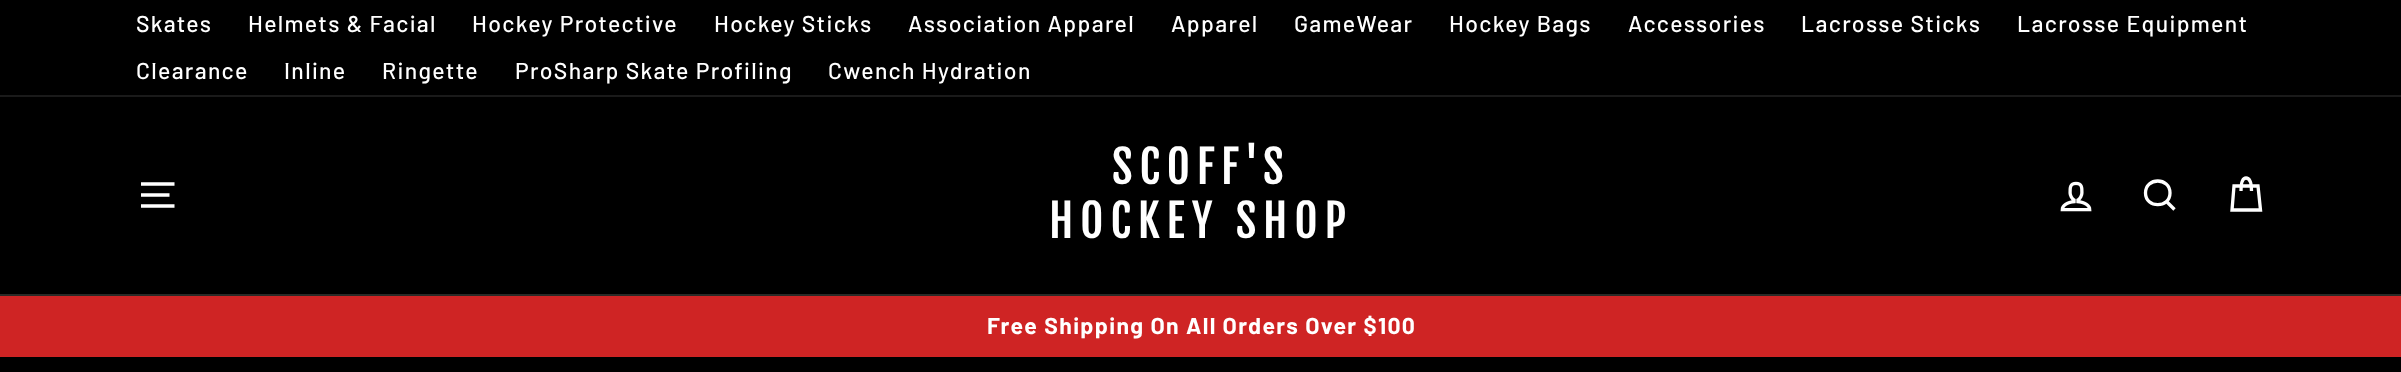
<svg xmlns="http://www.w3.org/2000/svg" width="2401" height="372">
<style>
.a{font:500 23px Barlow;letter-spacing:1.35px;fill:#fff}
.b{font:45px Fjalla One;letter-spacing:6.75px;fill:#fff}
.c{font:bold 23px Barlow;letter-spacing:1.35px;fill:#fff}
</style>
<rect width="100%" height="100%" fill="#000"/>
<path fill="#1a1a1a" d="M0 95h2401v2H0z"/>
<path fill="#2b2a27" d="M0 294h2401v2H0z"/>
<path fill="none" stroke="#fff" stroke-width="3.3" d="M141 184h33.5m-33.5 11h28.5m-28.5 11h33.5"/>
<image href="1.png" x="2060" y="181" width="32" height="31"/>
<path fill="none" stroke="#fff" stroke-width="3.3" d="M2170 193c0 15.5-24.5 15.5-24.5 0c0-16 24.5-16 24.5 0zm4.5 16.5l-8-8"/>
<path fill="none" stroke="#fff" stroke-width="3.3" d="M2241 191c0-10.5 2-13 5-13c3 0 5.5 2.5 5.5 13m-17.5-5h24l2.5 24h-28.5z"/>
<path fill="#cf2424" d="M0 296h2401v61H0z"/>
<text class="a" x="136" y="32">Skates</text>
<text class="a" x="248" y="32">Helmets &amp; Facial</text>
<text class="a" x="472" y="32">Hockey Protective</text>
<text class="a" x="714" y="32">Hockey Sticks</text>
<text class="a" x="908" y="32">Association Apparel</text>
<text class="a" x="1171" y="32">Apparel</text>
<text class="a" x="1294" y="32">GameWear</text>
<text class="a" x="1449" y="32">Hockey Bags</text>
<text class="a" x="1628" y="32">Accessories</text>
<text class="a" x="1801" y="32">Lacrosse Sticks</text>
<text class="a" x="2017" y="32">Lacrosse Equipment</text>
<text class="a" x="136" y="79">Clearance</text>
<text class="a" x="284" y="79">Inline</text>
<text class="a" x="382" y="79">Ringette</text>
<text class="a" x="515" y="79">ProSharp Skate Profiling</text>
<text class="a" x="828" y="79">Cwench Hydration</text>
<text class="b" x="1112" y="184">SCOFF'S</text>
<text class="b" x="1049" y="238">HOCKEY SHOP</text>
<text class="c" x="987" y="334">Free Shipping On All Orders Over $100</text>
</svg>
